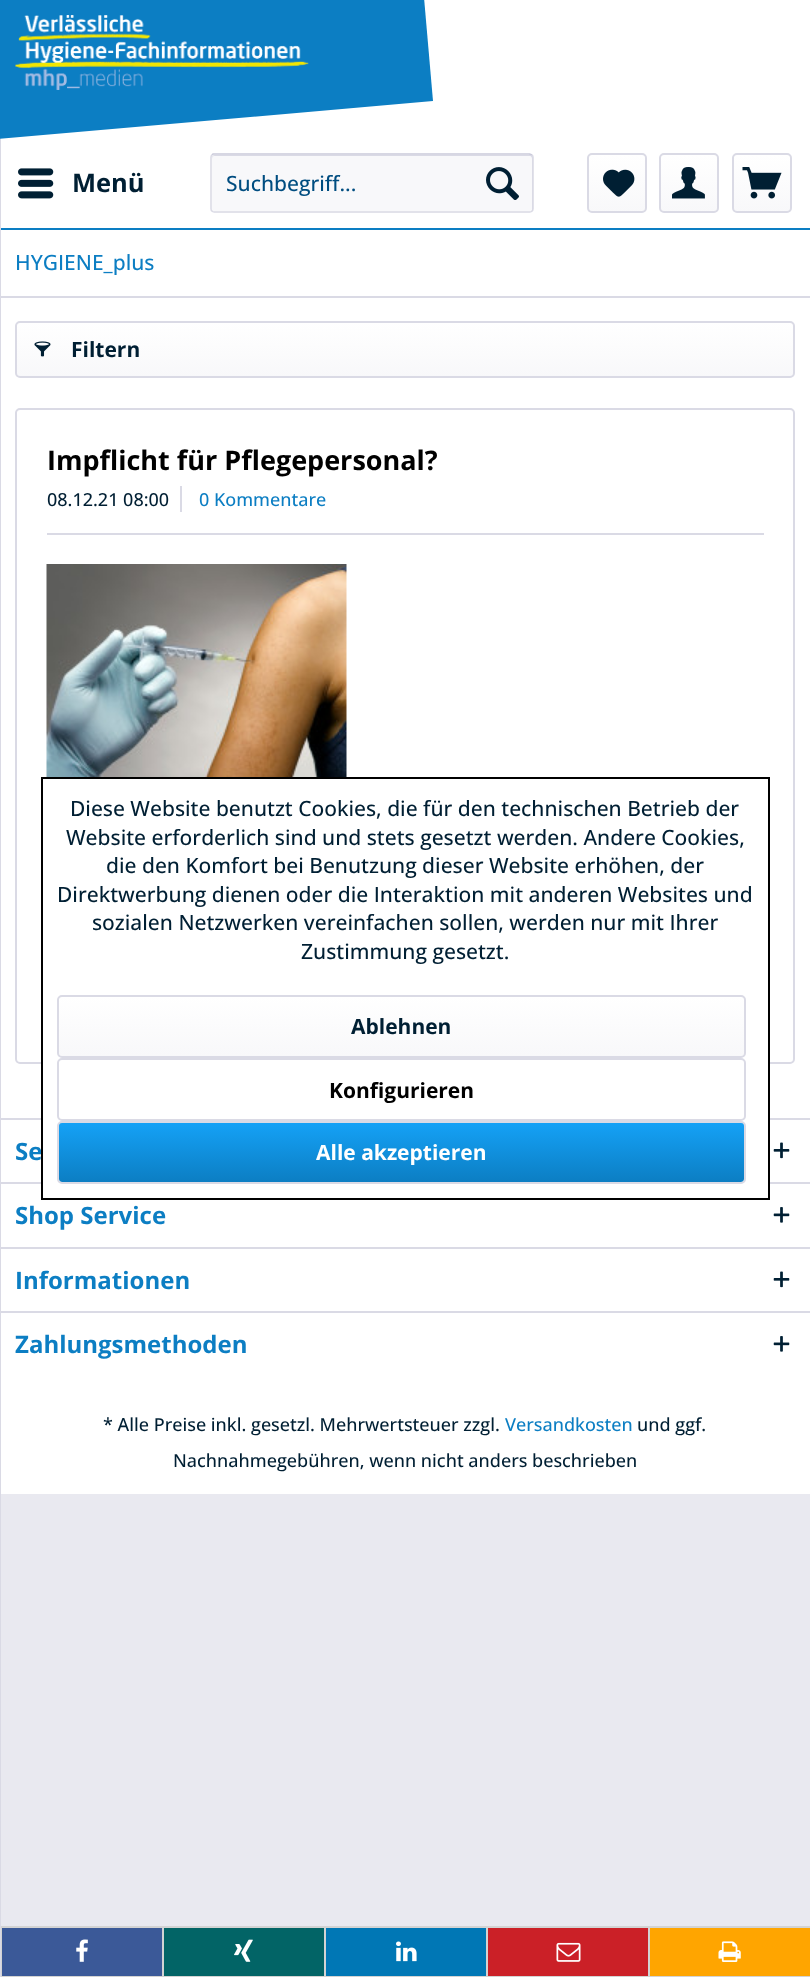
<svg xmlns="http://www.w3.org/2000/svg" width="810" height="1977">
<style>
.a{font:bold 25.5px Open Sans;fill:#001f33}
.b{font:500 21px Open Sans;fill:#004d80}
.c{font:500 21px Open Sans;fill:#0c7ec3}
.d{font:bold 21px Open Sans;fill:#001f33}
.e{font:bold 27px Open Sans;fill:#000}
.f{font:500 18px Open Sans;fill:#001f33}
.g{font:500 18px Open Sans;fill:#0c7ec3}
.h{font:bold 24px Open Sans;fill:#0c7ec3}
.i{font:500 21px Open Sans;fill:#001f33}
.j{font:bold 21px Open Sans;fill:#000}
.k{font:bold 21px Open Sans;fill:#fff}
</style>
<defs>
<linearGradient id="g1" gradientUnits="userSpaceOnUse" x1="617" y1="155" x2="617" y2="212"><stop offset="0" stop-color="#fff"/><stop offset="1" stop-color="#f8f8fa"/></linearGradient>
<linearGradient id="g2" gradientUnits="userSpaceOnUse" x1="689" y1="155" x2="689" y2="212"><stop offset="0" stop-color="#fff"/><stop offset="1" stop-color="#f8f8fa"/></linearGradient>
<linearGradient id="g3" gradientUnits="userSpaceOnUse" x1="762" y1="155" x2="762" y2="212"><stop offset="0" stop-color="#fff"/><stop offset="1" stop-color="#f8f8fa"/></linearGradient>
<linearGradient id="g4" gradientUnits="userSpaceOnUse" x1="405" y1="322" x2="405" y2="377"><stop offset="0" stop-color="#fff"/><stop offset="1" stop-color="#f8f8fa"/></linearGradient>
<linearGradient id="g5" gradientUnits="userSpaceOnUse" x1="401" y1="996" x2="401" y2="1056"><stop offset="0" stop-color="#fff"/><stop offset="1" stop-color="#f8f8fa"/></linearGradient>
<linearGradient id="g6" gradientUnits="userSpaceOnUse" x1="401" y1="1122" x2="401" y2="1182"><stop offset="0" stop-color="#15a2f7"/><stop offset="1" stop-color="#0c7ec3"/></linearGradient>
</defs>
<rect width="100%" height="100%" fill="#e9e9f0"/>
<path fill="#fff" d="M1 0h809v228H1z"/>
<path fill="#0c7ec3" d="M0 228h810v2H0z"/>
<path fill="#fff" d="M1 230h809v888H1z"/>
<path fill="#dadae5" d="M0 296h810v2H0z"/>
<path fill="#dadae5" d="M0 1118h810v2H0z"/>
<path fill="#fff" d="M1 1120h809v374H1z"/>
<path fill="#dadae5" d="M0 1182h810v2H0z"/>
<path fill="#dadae5" d="M0 1247h810v2H0z"/>
<path fill="#dadae5" d="M0 1311h810v2H0z"/>
<path fill="#d3d3d3" d="M0 1926h810v2H0z"/>
<path fill="#d3d3d3" d="M0 1976h810v1H0z"/>
<path fill="#dadae5" d="M0 138h1v1839H0z"/>
<path fill="#0c7ec3" d="M-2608-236l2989-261l52 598l-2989 261z"/>
<image href="1.png" x="15" y="15" width="294" height="75"/>
<image href="2.png" x="18" y="168" width="36" height="31"/>
<rect fill="#f8f8fa" x="210" y="153" width="324" height="60" rx="5"/>
<path fill="#dadae5" d="M214 156h316c1 0 2 1 2 3v52c1 0 1-1 1-2v-51c0-2-1-3-3-3h-315c-2 0-3 1-3 3v1c0-2 1-3 2-3z"/>
<path fill="none" stroke="#cbcbdb" stroke-width="1.5" d="M212 155l1-1h264h52.5l2.5 1"/>
<path fill="none" stroke="#dadae5" stroke-width="1.5" d="M532 155c1 .5 1 1.5 1 2.5v51c0 1 0 2-1 2.5c-.5 1-1.5 1-2.5 1h-315c-1 0-2 0-2.5-1c-1-.5-1-1.5-1-2.5v-51c0-1 0-2 1-2.5"/>
<image href="3.png" x="486" y="167" width="33" height="33"/>
<rect fill="url(#g1)" x="588" y="155" width="57" height="57" rx="3"/>
<rect fill="none" stroke="#dadae5" stroke-width="2" x="588" y="154" width="58" height="58" rx="4"/>
<image href="4.png" x="603" y="169" width="32" height="28"/>
<rect fill="url(#g2)" x="660" y="155" width="57" height="57" rx="3"/>
<rect fill="none" stroke="#dadae5" stroke-width="2" x="660" y="154" width="58" height="58" rx="4"/>
<image href="5.png" x="672" y="167" width="33" height="32"/>
<rect fill="url(#g3)" x="734" y="155" width="57" height="57" rx="3"/>
<rect fill="none" stroke="#dadae5" stroke-width="2" x="733" y="154" width="58" height="58" rx="4"/>
<image href="6.png" x="742" y="167" width="40" height="32"/>
<rect fill="url(#g4)" x="17" y="323" width="777" height="54" rx="3"/>
<rect fill="none" stroke="#dadae5" stroke-width="2" x="16" y="322" width="778" height="55" rx="4"/>
<image href="7.png" x="34" y="341" width="17" height="16"/>
<rect fill="none" stroke="#dadae5" stroke-width="2" x="16" y="409" width="778" height="654" rx="4"/>
<path fill="#dadae5" d="M47 533h717v2H47z"/>
<path fill="#dadae5" d="M180 486h2v26H180z"/>
<image href="8.png" x="46" y="564" width="301" height="213"/>
<image href="9.png" x="773" y="1142" width="17" height="17"/>
<image href="10.png" x="773" y="1207" width="17" height="16"/>
<image href="9.png" x="773" y="1271" width="17" height="17"/>
<image href="10.png" x="773" y="1336" width="17" height="16"/>
<path fill="#3b5998" d="M2 1928h160v48H2z"/>
<path fill="#d3d3d3" d="M1 1926h1v51H1z"/>
<image href="11.png" x="76" y="1939" width="12" height="23"/>
<path fill="#026466" d="M164 1928h160v48H164z"/>
<path fill="#d3d3d3" d="M162 1926h2v51H162z"/>
<image href="12.png" x="234" y="1939" width="19" height="23"/>
<path fill="#0077b5" d="M326 1928h160v48H326z"/>
<path fill="#d3d3d3" d="M324 1926h2v51H324z"/>
<image href="13.png" x="396" y="1941" width="21" height="21"/>
<path fill="#cb2027" d="M488 1928h160v48H488z"/>
<path fill="#d3d3d3" d="M486 1926h2v51H486z"/>
<image href="14.png" x="556" y="1942" width="25" height="20"/>
<path fill="#ffa500" d="M650 1928h160v48H650z"/>
<path fill="#d3d3d3" d="M648 1926h2v51H648z"/>
<image href="15.png" x="718" y="1941" width="23" height="21"/>
<path fill="#fff" d="M43 1062h725v122H43z"/>
<text class="a" x="72" y="192">Menü</text>
<text class="b" x="226" y="191">Suchbegriff...</text>
<text class="c" x="15" y="270">HYGIENE_plus</text>
<text class="d" x="71" y="357">Filtern</text>
<text class="e" x="47" y="470">Impflicht für Pflegepersonal?</text>
<text class="f" x="47" y="506">08.12.21 08:00</text>
<text class="g" x="199" y="506">0 Kommentare</text>
<text class="h" x="15" y="1160">Se</text>
<text class="h" x="15" y="1224">Shop Service</text>
<text class="h" x="15" y="1289">Informationen</text>
<text class="h" x="15" y="1353">Zahlungsmethoden</text>
<text class="f" x="103" y="1431">* Alle Preise inkl. gesetzl. Mehrwertsteuer zzgl.</text>
<text class="g" x="505" y="1431">Versandkosten</text>
<text class="f" x="637" y="1431">und ggf.</text>
<text class="f" x="173" y="1467">Nachnahmegebühren, wenn nicht anders beschrieben</text>
<path fill="none" stroke="#000" stroke-width="2" d="M42 778h727v421H42z"/>
<text class="i" x="70" y="816">Diese Website benutzt Cookies, die für den technischen Betrieb der</text>
<text class="i" x="66" y="845">Website erforderlich sind und stets gesetzt werden. Andere Cookies,</text>
<text class="i" x="106" y="873">die den Komfort bei Benutzung dieser Website erhöhen, der</text>
<text class="i" x="57" y="902">Direktwerbung dienen oder die Interaktion mit anderen Websites und</text>
<text class="i" x="92" y="930">sozialen Netzwerken vereinfachen sollen, werden nur mit Ihrer</text>
<text class="i" x="301" y="959">Zustimmung gesetzt.</text>
<rect fill="url(#g5)" x="59" y="996" width="685" height="60" rx="3"/>
<rect fill="none" stroke="#dadae5" stroke-width="2" x="58" y="996" width="687" height="61" rx="4"/>
<text class="d" x="351" y="1034">Ablehnen</text>
<rect fill="none" stroke="#dadae5" stroke-width="2" x="58" y="1059" width="687" height="61" rx="4"/>
<text class="j" x="329" y="1098">Konfigurieren</text>
<rect fill="url(#g6)" x="59" y="1122" width="685" height="60" rx="3"/>
<rect fill="none" stroke="#dadae5" stroke-width="2" x="58" y="1122" width="687" height="61" rx="4"/>
<text class="k" x="316" y="1160">Alle akzeptieren</text>
</svg>
